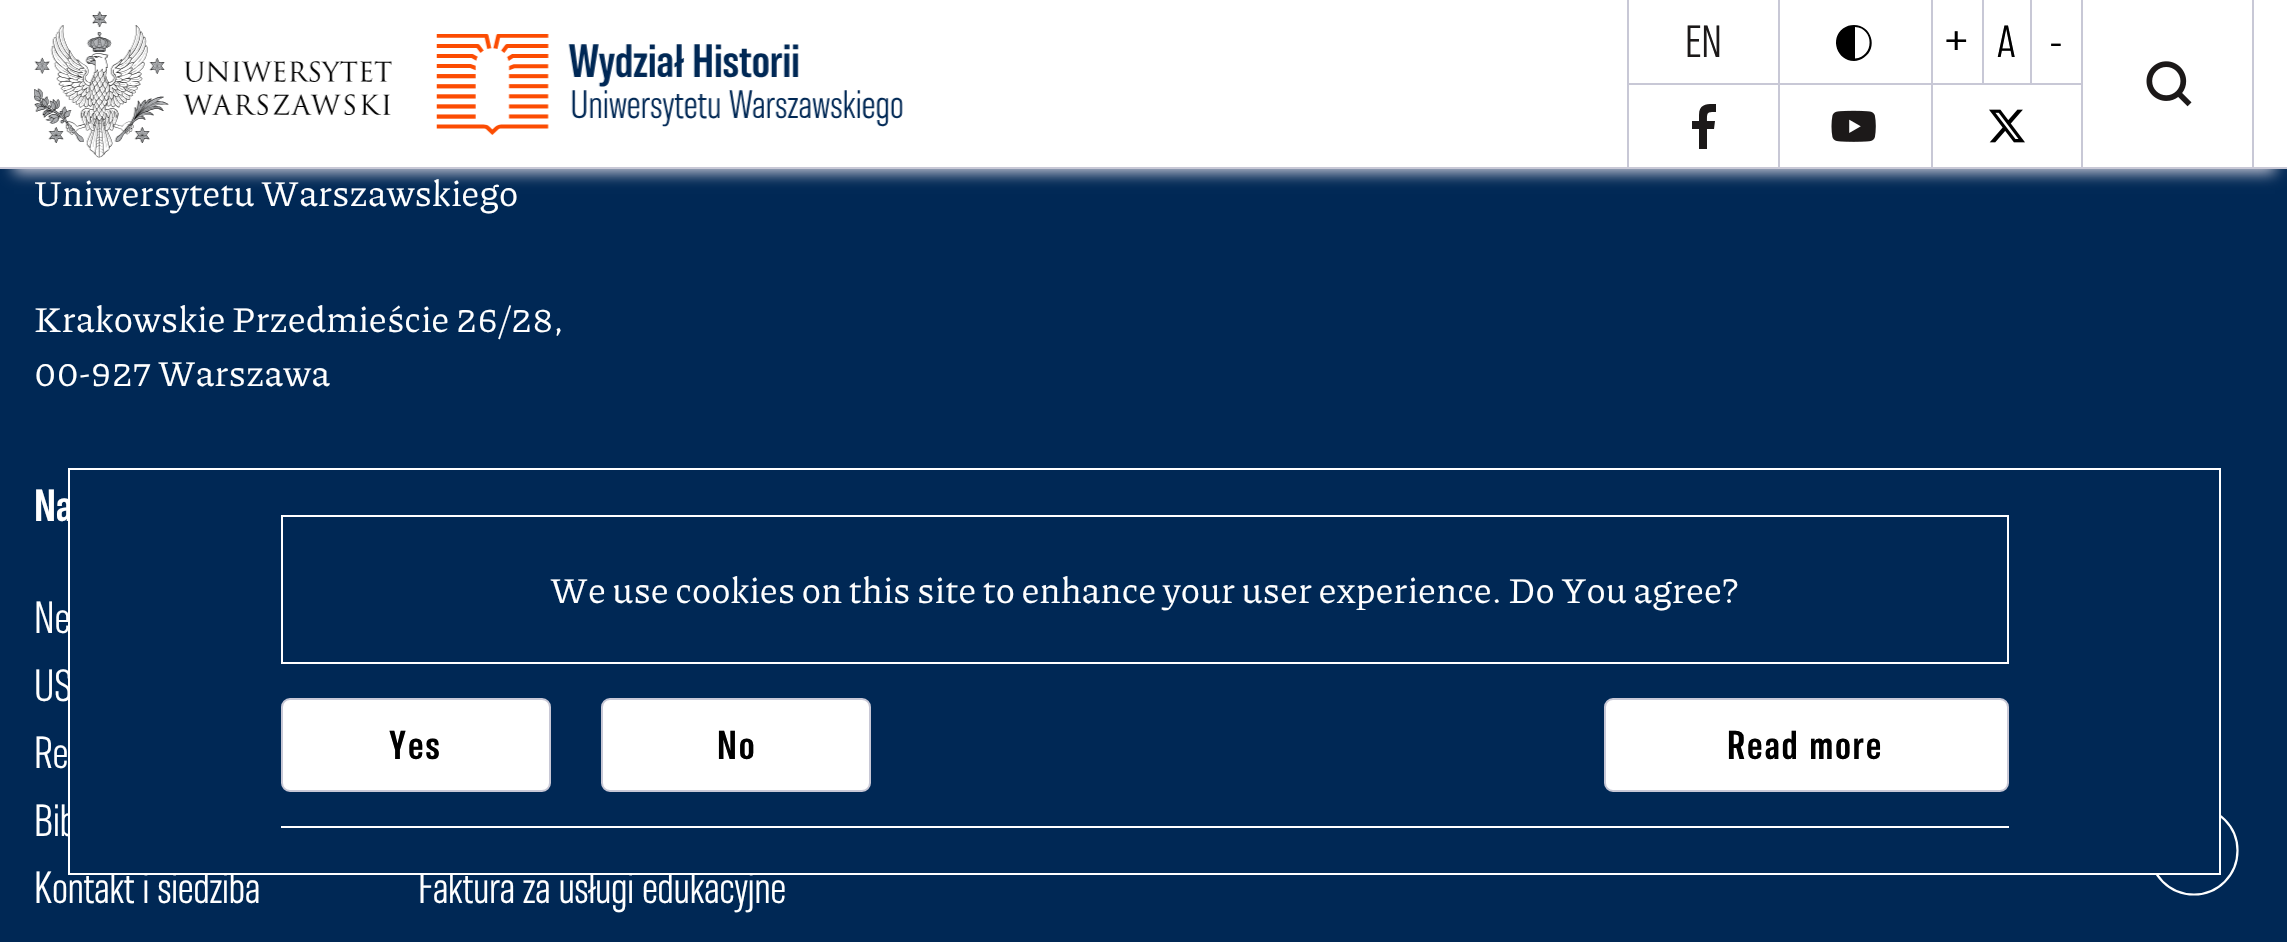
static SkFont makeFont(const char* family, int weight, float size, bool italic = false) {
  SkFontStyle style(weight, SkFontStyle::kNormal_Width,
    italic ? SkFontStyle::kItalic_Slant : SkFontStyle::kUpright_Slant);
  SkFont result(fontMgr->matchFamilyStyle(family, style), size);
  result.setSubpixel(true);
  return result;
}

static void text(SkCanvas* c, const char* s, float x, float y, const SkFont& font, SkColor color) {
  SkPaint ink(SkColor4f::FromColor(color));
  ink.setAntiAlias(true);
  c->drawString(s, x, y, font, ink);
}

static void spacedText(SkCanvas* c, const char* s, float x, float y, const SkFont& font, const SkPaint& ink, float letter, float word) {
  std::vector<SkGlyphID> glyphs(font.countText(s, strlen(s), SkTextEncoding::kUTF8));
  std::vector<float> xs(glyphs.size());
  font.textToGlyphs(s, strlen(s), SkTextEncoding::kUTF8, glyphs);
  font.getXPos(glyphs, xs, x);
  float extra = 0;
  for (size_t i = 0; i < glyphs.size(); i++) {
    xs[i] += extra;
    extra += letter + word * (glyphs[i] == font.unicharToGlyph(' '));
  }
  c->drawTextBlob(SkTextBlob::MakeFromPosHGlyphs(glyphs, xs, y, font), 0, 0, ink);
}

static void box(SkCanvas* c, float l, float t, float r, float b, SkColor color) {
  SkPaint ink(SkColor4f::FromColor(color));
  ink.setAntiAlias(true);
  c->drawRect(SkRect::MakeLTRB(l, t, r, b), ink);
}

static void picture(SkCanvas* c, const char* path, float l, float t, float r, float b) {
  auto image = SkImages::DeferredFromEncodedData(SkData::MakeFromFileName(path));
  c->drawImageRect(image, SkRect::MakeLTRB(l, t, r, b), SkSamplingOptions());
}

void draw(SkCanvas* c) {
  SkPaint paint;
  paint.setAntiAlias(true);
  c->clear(0xff002855);
  paint.setColor(0xffc8c8d6);
  paint.setMaskFilter(SkMaskFilter::MakeBlur(kNormal_SkBlurStyle, 7));
  c->drawRect(SkRect::MakeLTRB(14, 32, 2275, 173), paint);
  paint.setMaskFilter(nullptr);
  box(c, 0, 0, 2287, 167, 0xffffffff);
  box(c, 0, 167, 2287, 169, 0xffc8c8d6);
  picture(c, "img_01.png", 34, 11, 392, 158);
  picture(c, "img_02.png", 436, 34, 903, 135);
  box(c, 1627, 0, 1629, 83, 0xffc8c8d6);
  SkFont face1 = makeFont("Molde", 400, 45);
  text(c, "EN", 1685, 57, face1, 0xff1c1919);
  box(c, 1778, 0, 1780, 83, 0xffc8c8d6);
  paint.setColor(0xff000000);
  c->drawPath(SkPathBuilder().moveTo(1855, 58.5f).lineTo(1855, 27).cubicTo(1874.5f, 28, 1874.5f, 57, 1855, 58.5f).close().moveTo(1854, 25).cubicTo(1850, 25, 1846.5f, 26, 1843, 28.5f).cubicTo(1829.5f, 38.5f, 1837, 61, 1854, 61).cubicTo(1857.5f, 61, 1861, 59.5f, 1864, 57.5f).cubicTo(1878.5f, 48, 1871.5f, 25, 1854, 25).close().detach(), paint);
  box(c, 1931, 0, 1933, 83, 0xffc8c8d6);
  text(c, "+", 1945, 57, face1, 0xff000000);
  box(c, 2030, 0, 2032, 83, 0xffc8c8d6);
  box(c, 1982, 0, 1984, 83, 0xffc8c8d6);
  text(c, "A", 1997, 57, face1, 0xff000000);
  text(c, "-", 2049, 57, face1, 0xff000000);
  box(c, 2252, 0, 2254, 167, 0xffc8c8d6);
  box(c, 2081, 0, 2083, 167, 0xffc8c8d6);
  picture(c, "img_03.png", 2146, 61, 2192, 107);
  box(c, 1627, 83, 2081, 85, 0xffc8c8d6);
  box(c, 1627, 83, 1629, 167, 0xffc8c8d6);
  paint.setColor(0xff1c1919);
  c->drawPath(SkPathBuilder().moveTo(1699, 149).lineTo(1707, 149).lineTo(1707, 129).lineTo(1714, 129).lineTo(1715, 121).lineTo(1707, 121).cubicTo(1707, 112, 1707, 112, 1716, 112).lineTo(1716, 104).cubicTo(1708, 104, 1699, 103, 1699, 115).lineTo(1699, 121).lineTo(1692, 121).lineTo(1692, 129).lineTo(1699, 129).close().detach(), paint);
  box(c, 1778, 83, 1780, 167, 0xffc8c8d6);
  picture(c, "img_04.png", 1831, 110, 1876, 142);
  box(c, 1931, 83, 1933, 167, 0xffc8c8d6);
  picture(c, "img_05.png", 1989, 109, 2025, 143);
  SkFont face2 = makeFont("Molde", 700, 45);
  text(c, "Na", 34, 521, face2, 0xffffffff);
  text(c, "US", 34, 701, face1, 0xffffffff);
  text(c, "Bib", 34, 836, face1, 0xffffffff);
  text(c, "Kontakt i siedziba", 34, 903, face1, 0xffffffff);
  text(c, "Faktura za usługi edukacyjne", 418, 903, face1, 0xffffffff);
  paint.setStyle(SkPaint::kStroke_Style);
  paint.setStrokeWidth(2.2f);
  paint.setColor(0xffffffff);
  c->drawPath(SkPathBuilder().moveTo(2194, 894.5f).cubicTo(2169.5f, 894.5f, 2150, 875, 2150, 850.5f).cubicTo(2150, 826.5f, 2169.5f, 807, 2194, 807).cubicTo(2218, 807, 2237.5f, 826.5f, 2237.5f, 850.5f).cubicTo(2237.5f, 875, 2218, 894.5f, 2194, 894.5f).close().detach(), paint);
  box(c, 70, 500, 2219, 873, 0xff002855);
  paint.setStrokeWidth(2);
  c->drawRect(SkRect::MakeLTRB(69, 469, 2220, 874), paint);
  c->drawRect(SkRect::MakeLTRB(282, 516, 2008, 663), paint);
  SkFont face3 = makeFont("Piazzolla", 400, 36);
  text(c, "We use cookies on this site to enhance your user experience. Do You agree?", 550, 603, face3, 0xffffffff);
  box(c, 281, 826, 2009, 828, 0xffffffff);
  paint.setStyle(SkPaint::kFill_Style);
  c->drawRoundRect(SkRect::MakeLTRB(282, 699, 550, 791), 8, 8, paint);
  paint.setStyle(SkPaint::kStroke_Style);
  paint.setColor(0xffc8c8d6);
  c->drawRoundRect(SkRect::MakeLTRB(282, 699, 550, 791), 8, 8, paint);
  SkFont face4 = makeFont("Molde", 700, 40.5f);
  paint.setStyle(SkPaint::kFill_Style);
  paint.setColor(0xff000000);
  spacedText(c, "Yes", 389, 759, face4, paint, 2.25f, 0);
  paint.setColor(0xffffffff);
  c->drawRoundRect(SkRect::MakeLTRB(602, 699, 870, 791), 8, 8, paint);
  paint.setStyle(SkPaint::kStroke_Style);
  paint.setColor(0xffc8c8d6);
  c->drawRoundRect(SkRect::MakeLTRB(602, 699, 870, 791), 8, 8, paint);
  paint.setStyle(SkPaint::kFill_Style);
  paint.setColor(0xff000000);
  spacedText(c, "No", 717, 759, face4, paint, 2.25f, 0);
  paint.setColor(0xffffffff);
  c->drawRoundRect(SkRect::MakeLTRB(1605, 699, 2008, 791), 8, 8, paint);
  paint.setStyle(SkPaint::kStroke_Style);
  paint.setColor(0xffc8c8d6);
  c->drawRoundRect(SkRect::MakeLTRB(1605, 699, 2008, 791), 8, 8, paint);
  paint.setStyle(SkPaint::kFill_Style);
  paint.setColor(0xff000000);
  spacedText(c, "Read more", 1727, 759, face4, paint, 2.25f, 0);
  text(c, "Uniwersytetu Warszawskiego", 34, 206, face3, 0xffffffff);
  text(c, "Krakowskie Przedmieście 26/28,", 34, 332, face3, 0xffffffff);
  text(c, "00-927 Warszawa", 34, 386, face3, 0xffffffff);
  text(c, "Ne", 34, 633, face1, 0xffffffff);
  text(c, "Re", 34, 768, face1, 0xffffffff);
}
